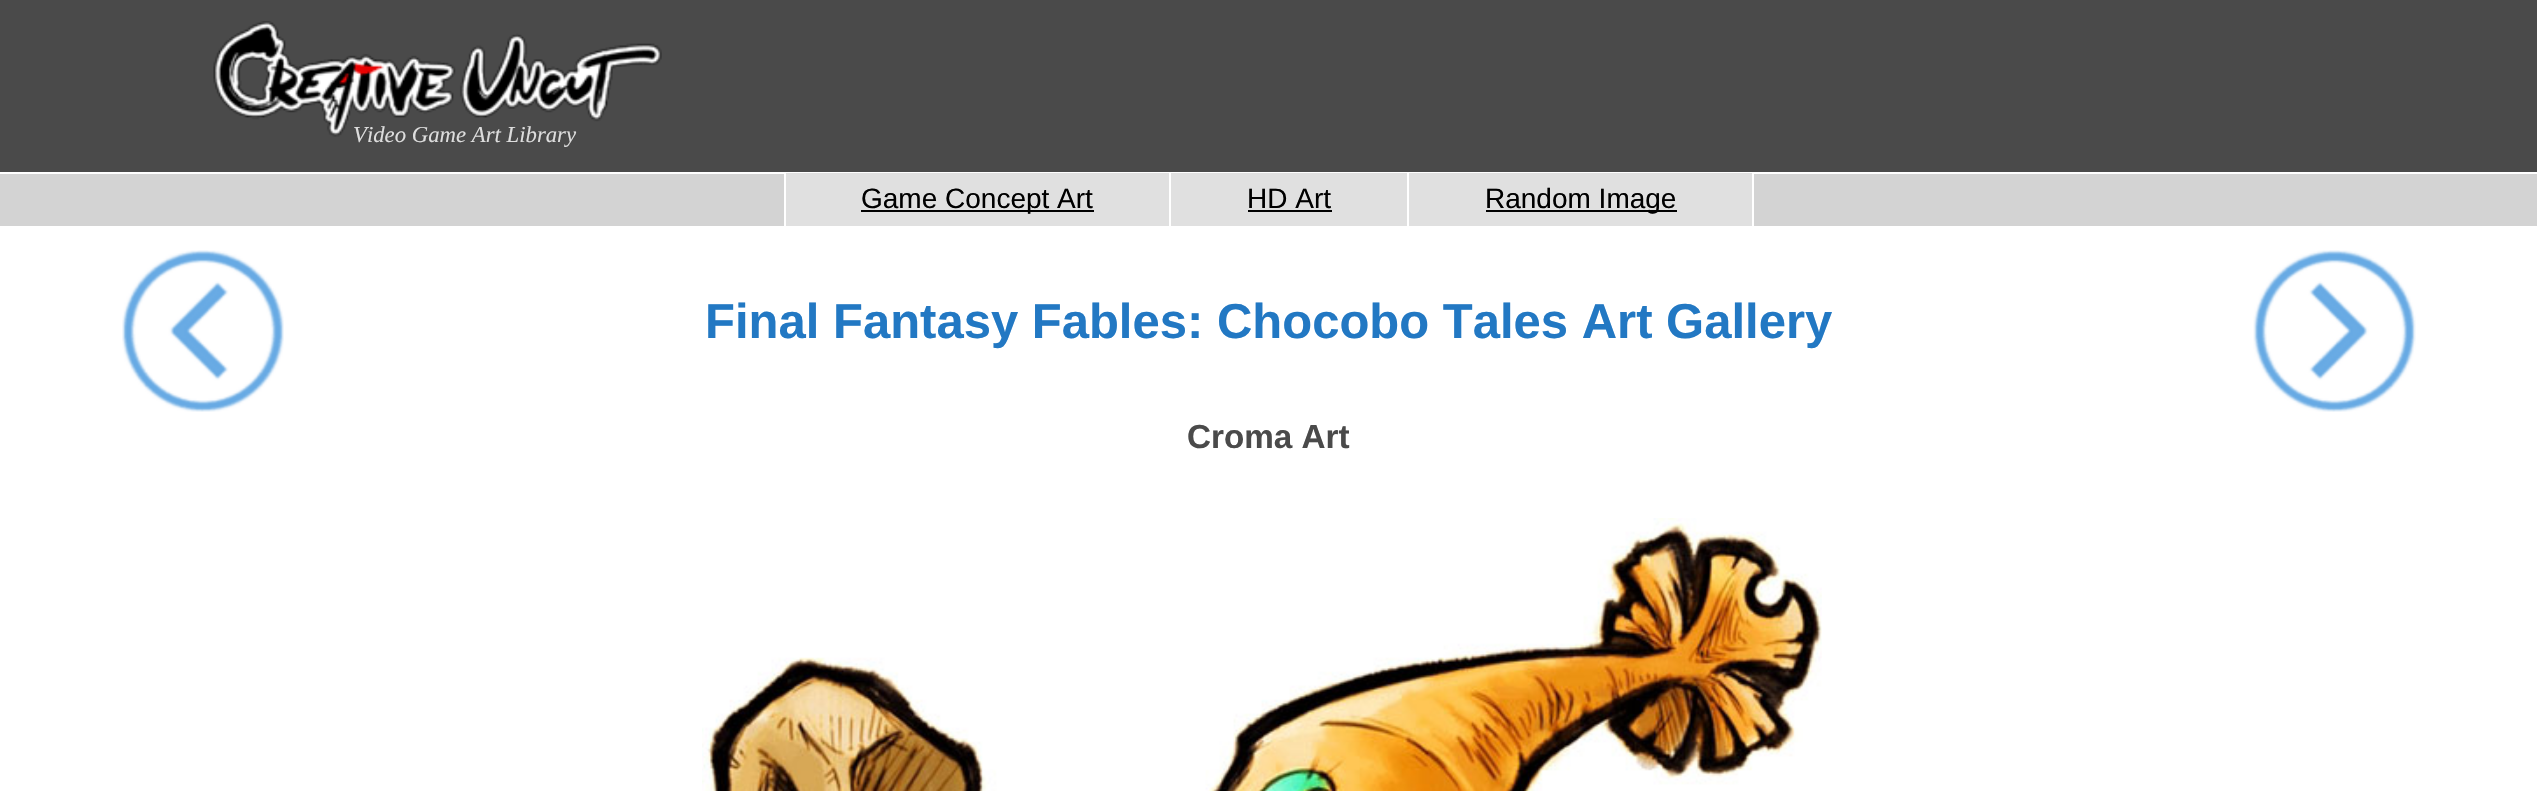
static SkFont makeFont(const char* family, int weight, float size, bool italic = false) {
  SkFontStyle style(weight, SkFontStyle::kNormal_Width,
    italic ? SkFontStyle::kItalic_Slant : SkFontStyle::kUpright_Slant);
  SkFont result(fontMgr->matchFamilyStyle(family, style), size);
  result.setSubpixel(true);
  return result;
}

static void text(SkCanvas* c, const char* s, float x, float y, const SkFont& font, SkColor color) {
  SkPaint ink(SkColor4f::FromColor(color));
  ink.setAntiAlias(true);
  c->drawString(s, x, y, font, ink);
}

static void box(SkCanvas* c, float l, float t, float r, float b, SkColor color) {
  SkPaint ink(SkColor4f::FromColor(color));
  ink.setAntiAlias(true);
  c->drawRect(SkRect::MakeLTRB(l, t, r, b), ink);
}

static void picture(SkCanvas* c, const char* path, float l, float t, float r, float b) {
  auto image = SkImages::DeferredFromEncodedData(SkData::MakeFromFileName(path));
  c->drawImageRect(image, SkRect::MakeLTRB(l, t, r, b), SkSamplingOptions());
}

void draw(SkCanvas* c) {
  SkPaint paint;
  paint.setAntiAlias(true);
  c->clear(0xffffffff);
  box(c, 0, 0, 2537, 172, 0xff4a4a4a);
  picture(c, "img_01.png", 213, 21, 662, 137);
  SkFont face1 = makeFont("Liberation Serif", 400, 22.75f, true);
  text(c, "Video Game Art Library", 353, 142, face1, 0xffdddddd);
  box(c, 0, 174, 2537, 226, 0xffd3d3d3);
  box(c, 786, 173, 1169, 226, 0xffe0e0e0);
  box(c, 784, 173, 786, 226, 0xffffffff);
  box(c, 861, 210, 1094, 212, 0xff000000);
  SkFont face2 = makeFont("Liberation Sans", 400, 28);
  text(c, "Game Concept Art", 861, 208, face2, 0xff000000);
  box(c, 1171, 173, 1407, 226, 0xffe0e0e0);
  box(c, 1169, 173, 1171, 226, 0xffffffff);
  text(c, "HD Art", 1247, 208, face2, 0xff000000);
  box(c, 1248, 210, 1332, 212, 0xff000000);
  box(c, 1409, 173, 1752, 226, 0xffe0e0e0);
  box(c, 1752, 173, 1754, 226, 0xffffffff);
  box(c, 1407, 173, 1409, 226, 0xffffffff);
  box(c, 1486, 210, 1677, 212, 0xff000000);
  text(c, "Random Image", 1485, 208, face2, 0xff000000);
  picture(c, "img_02.png", 122, 250, 284, 412);
  SkFont face3 = makeFont("Liberation Sans", 700, 49);
  text(c, "Final Fantasy Fables: Chocobo Tales Art Gallery", 705, 338, face3, 0xff2278c3);
  picture(c, "img_03.png", 2253, 250, 2416, 412);
  SkFont face4 = makeFont("Liberation Sans", 700, 33.25f);
  text(c, "Croma Art", 1187, 448, face4, 0xff4a4a4a);
  picture(c, "img_04.png", 702, 518, 1822, 791);
}
